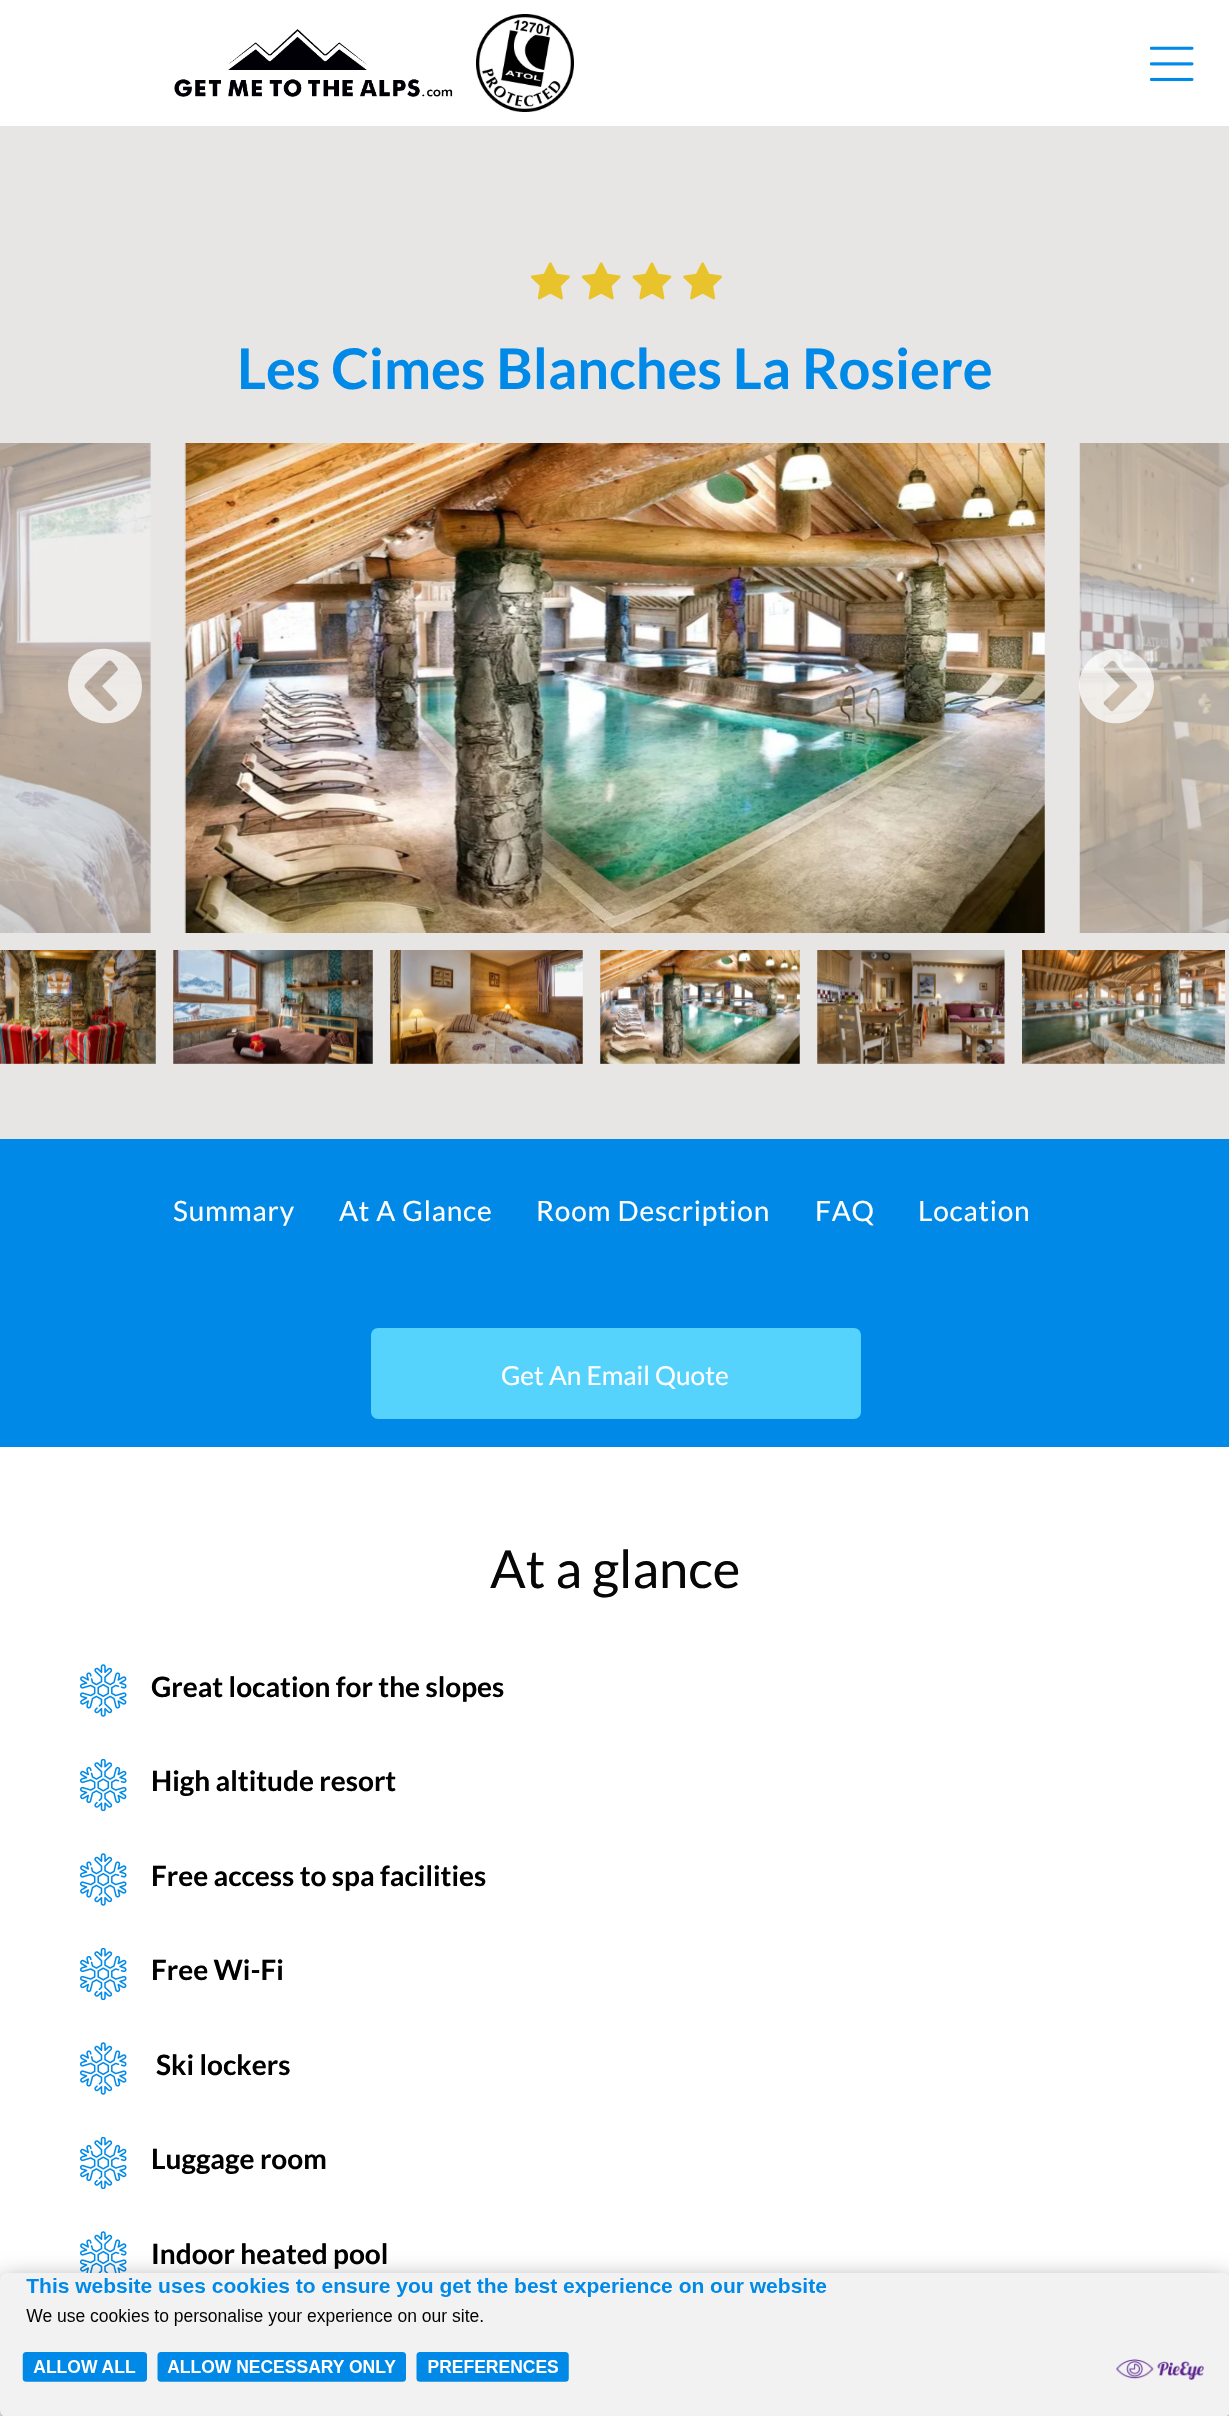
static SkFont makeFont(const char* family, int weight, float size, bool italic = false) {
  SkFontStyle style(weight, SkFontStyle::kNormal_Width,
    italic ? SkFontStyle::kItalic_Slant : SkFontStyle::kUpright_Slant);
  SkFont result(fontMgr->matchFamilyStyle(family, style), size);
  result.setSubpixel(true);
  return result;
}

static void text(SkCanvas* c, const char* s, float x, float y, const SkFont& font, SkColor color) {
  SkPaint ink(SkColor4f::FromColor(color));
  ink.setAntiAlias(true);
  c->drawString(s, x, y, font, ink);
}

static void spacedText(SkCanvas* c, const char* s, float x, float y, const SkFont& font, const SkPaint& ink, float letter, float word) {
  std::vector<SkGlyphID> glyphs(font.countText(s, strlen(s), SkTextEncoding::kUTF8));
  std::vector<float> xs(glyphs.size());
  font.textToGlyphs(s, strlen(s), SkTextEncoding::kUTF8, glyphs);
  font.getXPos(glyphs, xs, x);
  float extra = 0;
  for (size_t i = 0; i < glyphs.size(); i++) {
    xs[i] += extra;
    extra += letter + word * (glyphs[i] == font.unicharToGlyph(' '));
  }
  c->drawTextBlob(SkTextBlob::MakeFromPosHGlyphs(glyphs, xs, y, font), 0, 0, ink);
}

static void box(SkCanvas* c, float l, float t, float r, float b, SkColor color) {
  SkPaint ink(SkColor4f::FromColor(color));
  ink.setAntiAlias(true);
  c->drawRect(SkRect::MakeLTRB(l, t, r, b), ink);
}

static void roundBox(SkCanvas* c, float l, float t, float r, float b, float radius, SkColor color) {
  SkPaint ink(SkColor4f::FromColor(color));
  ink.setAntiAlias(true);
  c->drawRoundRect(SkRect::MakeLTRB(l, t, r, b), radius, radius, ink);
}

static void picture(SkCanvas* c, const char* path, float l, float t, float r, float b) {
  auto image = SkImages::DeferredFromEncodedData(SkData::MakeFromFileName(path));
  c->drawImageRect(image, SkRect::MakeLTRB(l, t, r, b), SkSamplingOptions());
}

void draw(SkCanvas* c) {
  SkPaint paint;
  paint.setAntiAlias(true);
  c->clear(0xffffffff);
  picture(c, "img_01.png", 174, 29, 453, 97);
  picture(c, "img_02.png", 476, 14, 574, 112);
  picture(c, "img_03.png", 1150, 46, 1194, 82);
  box(c, 0, 126, 1229, 1139, 0xffe7e6e5);
  picture(c, "img_04.png", 531, 262, 570, 300);
  picture(c, "img_05.png", 581, 262, 621, 300);
  picture(c, "img_06.png", 632, 262, 672, 300);
  picture(c, "img_07.png", 683, 262, 722, 300);
  SkFont face1 = makeFont("Lato", 700, 56);
  text(c, "Les Cimes Blanches La Rosiere", 237, 389, face1, 0xff0189e7);
  picture(c, "img_08.png", 0, 443, 151, 933);
  picture(c, "img_09.png", 184, 443, 1045, 933);
  picture(c, "img_10.png", 1079, 443, 1229, 933);
  paint.setColor(0xbfffffff);
  c->drawPath(SkPathBuilder().moveTo(112, 710).cubicTo(109, 713, 105, 708, 104, 707).lineTo(89, 692).cubicTo(83, 686, 83, 686, 89, 680).lineTo(104, 665).cubicTo(110, 659, 110, 659, 116, 666).cubicTo(117, 667, 119, 669, 117, 671).lineTo(102, 686).lineTo(114, 699).cubicTo(120, 705, 117, 705, 112, 710).close().moveTo(142, 686).cubicTo(142, 651, 97, 635, 75, 663).cubicTo(70, 670, 68, 678, 68, 686).cubicTo(68, 721, 113, 737, 135, 709).cubicTo(140, 702, 142, 694, 142, 686).close().detach(), paint);
  c->drawPath(SkPathBuilder().moveTo(1114, 710).cubicTo(1112, 713, 1109, 710, 1108, 708).cubicTo(1103, 703, 1102, 704, 1107, 699).lineTo(1120, 686).lineTo(1107, 673).cubicTo(1102, 668, 1103, 669, 1108, 664).cubicTo(1114, 657, 1115, 663, 1121, 669).lineTo(1132, 680).cubicTo(1139, 686, 1139, 686, 1132, 692).close().moveTo(1154, 686).cubicTo(1154, 678, 1151, 670, 1146, 663).cubicTo(1125, 635, 1079, 651, 1079, 686).cubicTo(1079, 694, 1082, 702, 1087, 709).cubicTo(1108, 737, 1154, 721, 1154, 686).close().detach(), paint);
  picture(c, "img_11.png", 0, 950, 156, 1064);
  picture(c, "img_12.png", 173, 950, 373, 1064);
  picture(c, "img_13.png", 390, 950, 583, 1064);
  picture(c, "img_14.png", 600, 950, 800, 1064);
  picture(c, "img_15.png", 817, 950, 1005, 1064);
  picture(c, "img_16.png", 1022, 950, 1225, 1064);
  box(c, 0, 1139, 1229, 1447, 0xff0189e7);
  SkFont face2 = makeFont("Lato", 400, 28);
  paint.setColor(0xffffffff);
  spacedText(c, "Summary", 173, 1221, face2, paint, 0.8f, 0);
  spacedText(c, "At A Glance", 339, 1221, face2, paint, 0.8f, 0);
  spacedText(c, "Room Description", 536, 1221, face2, paint, 0.8f, 0);
  spacedText(c, "FAQ", 815, 1221, face2, paint, 0.8f, 0);
  spacedText(c, "Location", 918, 1221, face2, paint, 0.8f, 0);
  roundBox(c, 371, 1328, 861, 1419, 7, 0xff55d3fd);
  SkFont face3 = makeFont("Lato", 400, 26.25f);
  text(c, "Get An Email Quote", 501, 1385, face3, 0xffffffff);
  SkFont face4 = makeFont("Lato", 400, 52.5f);
  text(c, "At a glance", 490, 1588, face4, 0xff080708);
  picture(c, "img_17.png", 80, 1664, 127, 1717);
  SkFont face5 = makeFont("Lato", 700, 28);
  text(c, "Great location for the slopes", 151, 1697, face5, 0xff000000);
  picture(c, "img_18.png", 80, 1759, 127, 1811);
  text(c, "High altitude resort", 151, 1791, face5, 0xff000000);
  picture(c, "img_17.png", 80, 1853, 127, 1906);
  text(c, "Free access to spa facilities", 151, 1886, face5, 0xff000000);
  picture(c, "img_18.png", 80, 1948, 127, 2000);
  text(c, "Free Wi-Fi", 151, 1980, face5, 0xff000000);
  picture(c, "img_17.png", 80, 2042, 127, 2095);
  text(c, "Ski lockers", 156, 2075, face5, 0xff000000);
  picture(c, "img_18.png", 80, 2137, 127, 2189);
  text(c, "Luggage room", 151, 2169, face5, 0xff000000);
  picture(c, "img_19.png", 80, 2231, 127, 2273);
  text(c, "Indoor heated pool", 151, 2264, face5, 0xff000000);
  paint.setColor(0x80000000);
  paint.setMaskFilter(SkMaskFilter::MakeBlur(kNormal_SkBlurStyle, 13));
  c->drawRoundRect(SkRect::MakeLTRB(0, 2282, 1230, 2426), 7, 7, paint);
  paint.setMaskFilter(nullptr);
  roundBox(c, 0, 2273, 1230, 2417, 7, 0xfff2f2f2);
  picture(c, "img_20.png", 22, 2278, 1204, 2382);
}
